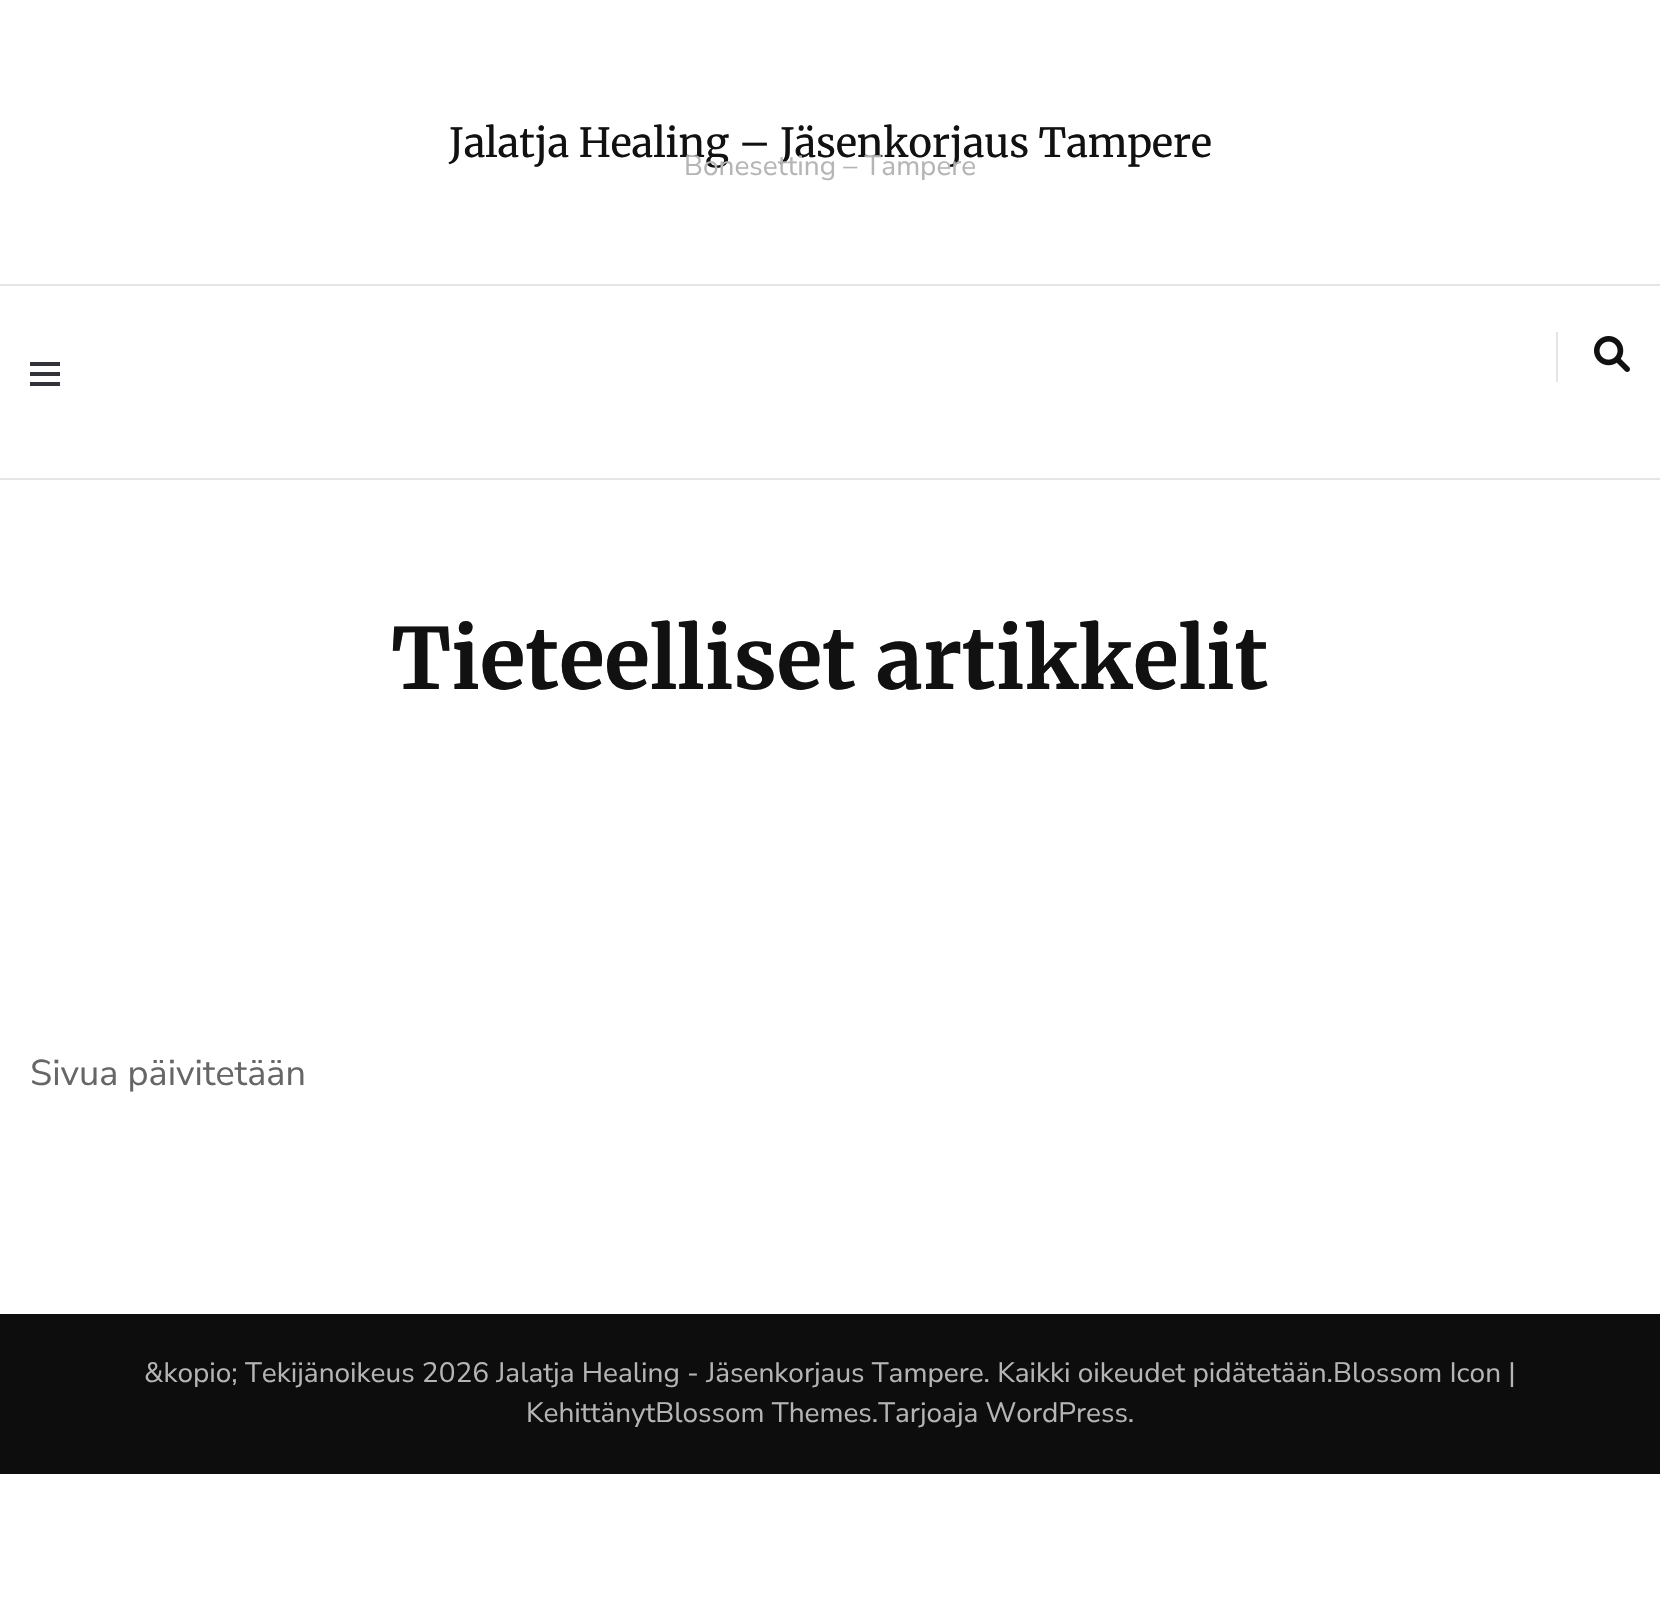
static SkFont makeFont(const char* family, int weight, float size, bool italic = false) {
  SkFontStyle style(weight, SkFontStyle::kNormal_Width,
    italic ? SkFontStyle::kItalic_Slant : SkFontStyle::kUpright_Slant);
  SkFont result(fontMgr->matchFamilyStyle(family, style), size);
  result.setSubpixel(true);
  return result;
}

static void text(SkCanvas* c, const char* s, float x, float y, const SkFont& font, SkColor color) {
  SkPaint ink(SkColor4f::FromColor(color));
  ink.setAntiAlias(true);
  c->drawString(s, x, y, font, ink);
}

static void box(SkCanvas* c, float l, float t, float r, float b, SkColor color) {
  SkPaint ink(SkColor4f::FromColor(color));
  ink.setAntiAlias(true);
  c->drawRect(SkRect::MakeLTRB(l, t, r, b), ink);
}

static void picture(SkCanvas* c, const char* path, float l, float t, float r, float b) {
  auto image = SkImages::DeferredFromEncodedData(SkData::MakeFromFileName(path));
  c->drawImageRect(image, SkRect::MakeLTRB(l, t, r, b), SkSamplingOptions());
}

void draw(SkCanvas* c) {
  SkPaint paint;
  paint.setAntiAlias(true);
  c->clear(0xffffffff);
  SkFont face1 = makeFont("Merriweather", 400, 40);
  text(c, "Jalatja Healing – Jäsenkorjaus Tampere", 449, 157, face1, 0xff111111);
  SkFont face2 = makeFont("Nunito Sans", 400, 28);
  text(c, "Bonesetting – Tampere", 684, 175, face2, 0xffb5b5b5);
  box(c, 0, 284, 1660, 286, 0xffe5e5e5);
  box(c, 0, 478, 1660, 480, 0xffe5e5e5);
  box(c, 30, 372, 60, 376, 0xff323338);
  box(c, 30, 362, 60, 366, 0xff323338);
  box(c, 30, 382, 60, 386, 0xff323338);
  box(c, 1556, 332, 1558, 382, 0xffe5e5e5);
  picture(c, "img_01.png", 1594, 336, 1630, 372);
  SkFont face3 = makeFont("Merriweather", 700, 84);
  text(c, "Tieteelliset artikkelit", 391, 689, face3, 0xff111111);
  SkFont face4 = makeFont("Nunito Sans", 400, 36);
  text(c, "Sivua päivitetään", 30, 1085, face4, 0xff666666);
  box(c, 0, 1314, 1660, 1474, 0xff0d0d0d);
  text(c, "&kopio; Tekijänoikeus 2026 Jalatja Healing - Jäsenkorjaus Tampere. Kaikki oikeudet pidätetään.Blossom Icon |", 144, 1382, face2, 0xffb5b5b5);
  text(c, "KehittänytBlossom Themes.Tarjoaja WordPress.", 526, 1422, face2, 0xffb5b5b5);
}
